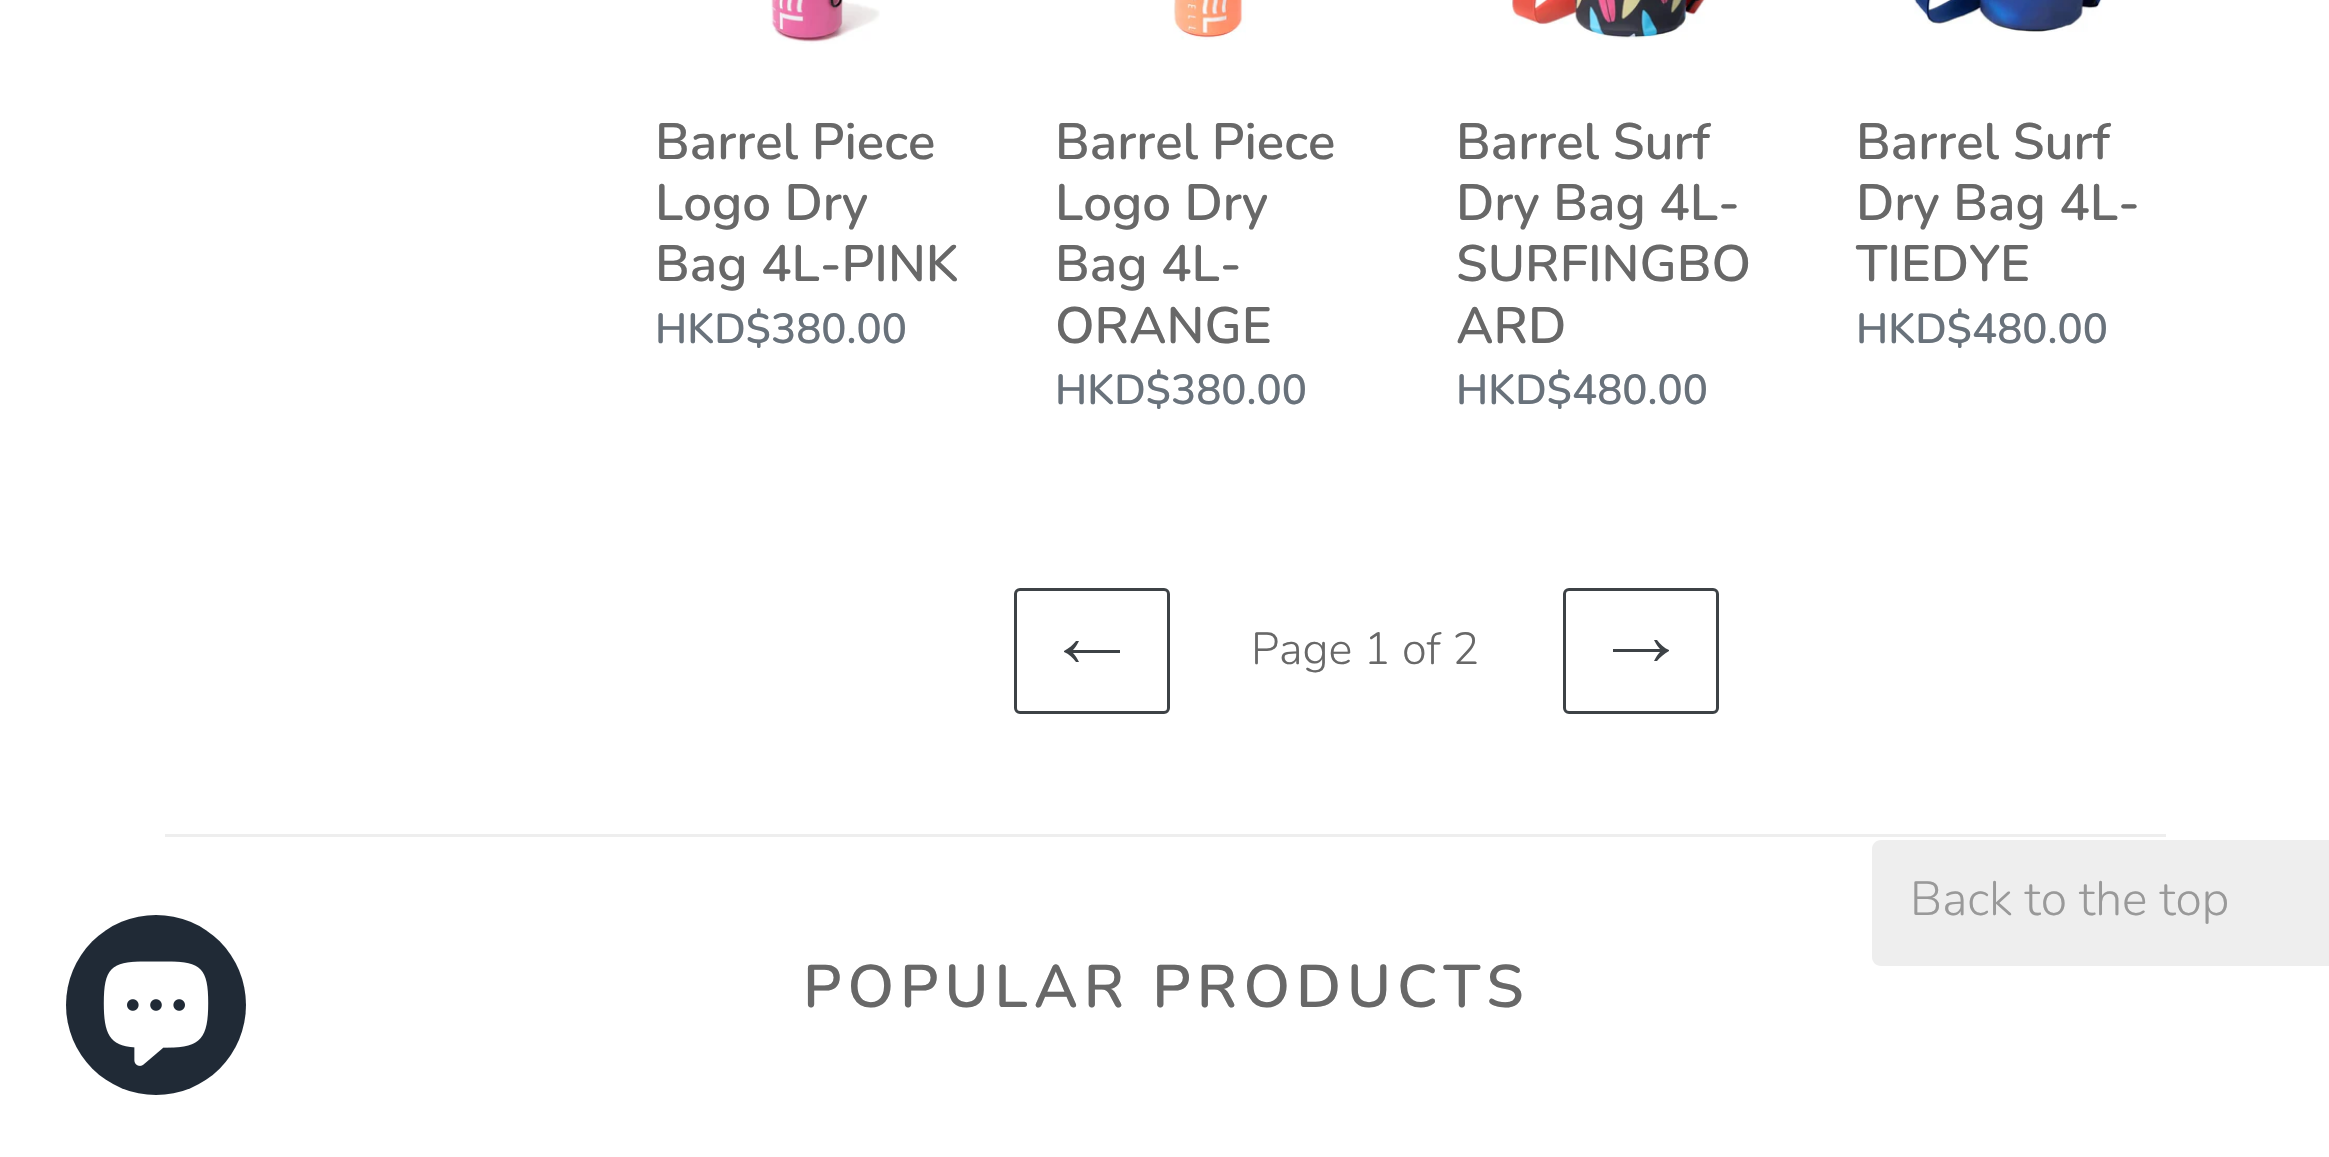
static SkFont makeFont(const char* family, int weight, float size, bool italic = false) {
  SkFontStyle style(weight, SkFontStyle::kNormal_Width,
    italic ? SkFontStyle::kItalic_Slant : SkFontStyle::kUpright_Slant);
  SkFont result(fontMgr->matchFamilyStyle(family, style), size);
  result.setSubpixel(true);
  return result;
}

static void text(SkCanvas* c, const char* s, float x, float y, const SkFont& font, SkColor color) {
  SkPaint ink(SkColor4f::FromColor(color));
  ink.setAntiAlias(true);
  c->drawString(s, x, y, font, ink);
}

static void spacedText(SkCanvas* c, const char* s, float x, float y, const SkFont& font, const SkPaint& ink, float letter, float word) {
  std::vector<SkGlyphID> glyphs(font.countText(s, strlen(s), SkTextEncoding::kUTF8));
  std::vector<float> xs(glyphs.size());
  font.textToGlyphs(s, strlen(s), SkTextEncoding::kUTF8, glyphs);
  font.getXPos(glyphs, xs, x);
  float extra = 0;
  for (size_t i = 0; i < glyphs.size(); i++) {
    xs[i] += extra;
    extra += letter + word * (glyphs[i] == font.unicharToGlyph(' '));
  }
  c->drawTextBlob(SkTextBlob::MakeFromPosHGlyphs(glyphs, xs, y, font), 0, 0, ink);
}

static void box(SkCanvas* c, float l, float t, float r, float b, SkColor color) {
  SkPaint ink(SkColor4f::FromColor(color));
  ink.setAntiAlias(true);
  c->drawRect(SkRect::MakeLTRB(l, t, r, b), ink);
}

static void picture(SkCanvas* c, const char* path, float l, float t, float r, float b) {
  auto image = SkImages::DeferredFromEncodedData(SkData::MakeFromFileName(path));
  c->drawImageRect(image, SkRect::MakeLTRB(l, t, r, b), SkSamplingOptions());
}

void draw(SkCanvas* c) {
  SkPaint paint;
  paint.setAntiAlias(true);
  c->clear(0xffffffff);
  picture(c, "img_01.png", 770, 0, 880, 44);
  SkFont face1 = makeFont("Nunito", 600, 51);
  text(c, "Barrel Piece", 655, 159, face1, 0xff686868);
  text(c, "Logo Dry", 655, 220, face1, 0xff686868);
  text(c, "Bag 4L-PINK", 655, 281, face1, 0xff686868);
  SkFont face2 = makeFont("Nunito", 600, 42);
  text(c, "HKD$380.00", 655, 343, face2, 0xff69727b);
  picture(c, "img_02.png", 1173, 0, 1246, 40);
  text(c, "Barrel Piece", 1055, 159, face1, 0xff686868);
  text(c, "Logo Dry", 1055, 220, face1, 0xff686868);
  text(c, "Bag 4L-", 1055, 281, face1, 0xff686868);
  text(c, "ORANGE", 1055, 343, face1, 0xff686868);
  text(c, "HKD$380.00", 1055, 404, face2, 0xff69727b);
  picture(c, "img_03.png", 1510, 0, 1706, 40);
  text(c, "Barrel Surf", 1456, 159, face1, 0xff686868);
  text(c, "Dry Bag 4L-", 1456, 220, face1, 0xff686868);
  text(c, "SURFINGBO", 1456, 281, face1, 0xff686868);
  text(c, "ARD", 1456, 343, face1, 0xff686868);
  text(c, "HKD$480.00", 1456, 404, face2, 0xff69727b);
  picture(c, "img_04.png", 1914, 0, 2102, 32);
  text(c, "Barrel Surf", 1856, 159, face1, 0xff686868);
  text(c, "Dry Bag 4L-", 1856, 220, face1, 0xff686868);
  text(c, "TIEDYE", 1856, 281, face1, 0xff686868);
  text(c, "HKD$480.00", 1856, 343, face2, 0xff69727b);
  paint.setStyle(SkPaint::kStroke_Style);
  paint.setStrokeWidth(3);
  paint.setColor(0xff3d4246);
  c->drawRoundRect(SkRect::MakeLTRB(1015.5f, 589.5f, 1168.5f, 712.5f), 4.5f, 4.5f, paint);
  paint.setStyle(SkPaint::kFill_Style);
  c->drawPath(SkPathBuilder(SkPathFillType::kEvenOdd).moveTo(1076, 662).cubicTo(1073, 658, 1069, 654, 1064, 652).lineTo(1064, 651).cubicTo(1069, 648, 1073, 645, 1076, 641).lineTo(1079, 641).cubicTo(1077, 645, 1075, 648, 1073, 650).lineTo(1120, 650).lineTo(1120, 653).lineTo(1073, 653).cubicTo(1075, 655, 1077, 658, 1079, 662).close().detach(), paint);
  SkFont face3 = makeFont("Nunito", 300, 45);
  text(c, "Page 1 of 2", 1251, 664, face3, 0xff686868);
  paint.setStyle(SkPaint::kStroke_Style);
  c->drawRoundRect(SkRect::MakeLTRB(1564.5f, 589.5f, 1717.5f, 712.5f), 4.5f, 4.5f, paint);
  paint.setStyle(SkPaint::kFill_Style);
  c->drawPath(SkPathBuilder(SkPathFillType::kEvenOdd).moveTo(1657, 640).cubicTo(1660, 644, 1664, 648, 1669, 650).lineTo(1669, 651).cubicTo(1664, 654, 1660, 657, 1657, 661).lineTo(1654, 661).cubicTo(1656, 657, 1658, 654, 1660, 652).lineTo(1613, 652).lineTo(1613, 649).lineTo(1660, 649).cubicTo(1658, 647, 1656, 644, 1654, 640).close().detach(), paint);
  box(c, 165, 834, 2166, 837, 0xffeeeeee);
  SkFont face4 = makeFont("Nunito", 600, 60);
  paint.setColor(0xff686868);
  spacedText(c, "POPULAR PRODUCTS", 803, 1007, face4, paint, 6, 0);
  paint.setColor(0xffeeeeee);
  c->drawPath(SkPathBuilder().moveTo(1881, 840).lineTo(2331, 840).lineTo(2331, 966).lineTo(1881, 966).cubicTo(1876, 966, 1872, 962, 1872, 957).lineTo(1872, 849).cubicTo(1872, 844, 1876, 840, 1881, 840).close().detach(), paint);
  SkFont face5 = makeFont("Nunito", 300, 48);
  text(c, "Back to the top", 1910, 915, face5, 0xff999999);
  paint.setColor(0xff202a36);
  c->drawCircle(156, 1005, 90, paint);
  picture(c, "img_05.png", 103, 961, 209, 1066);
}
